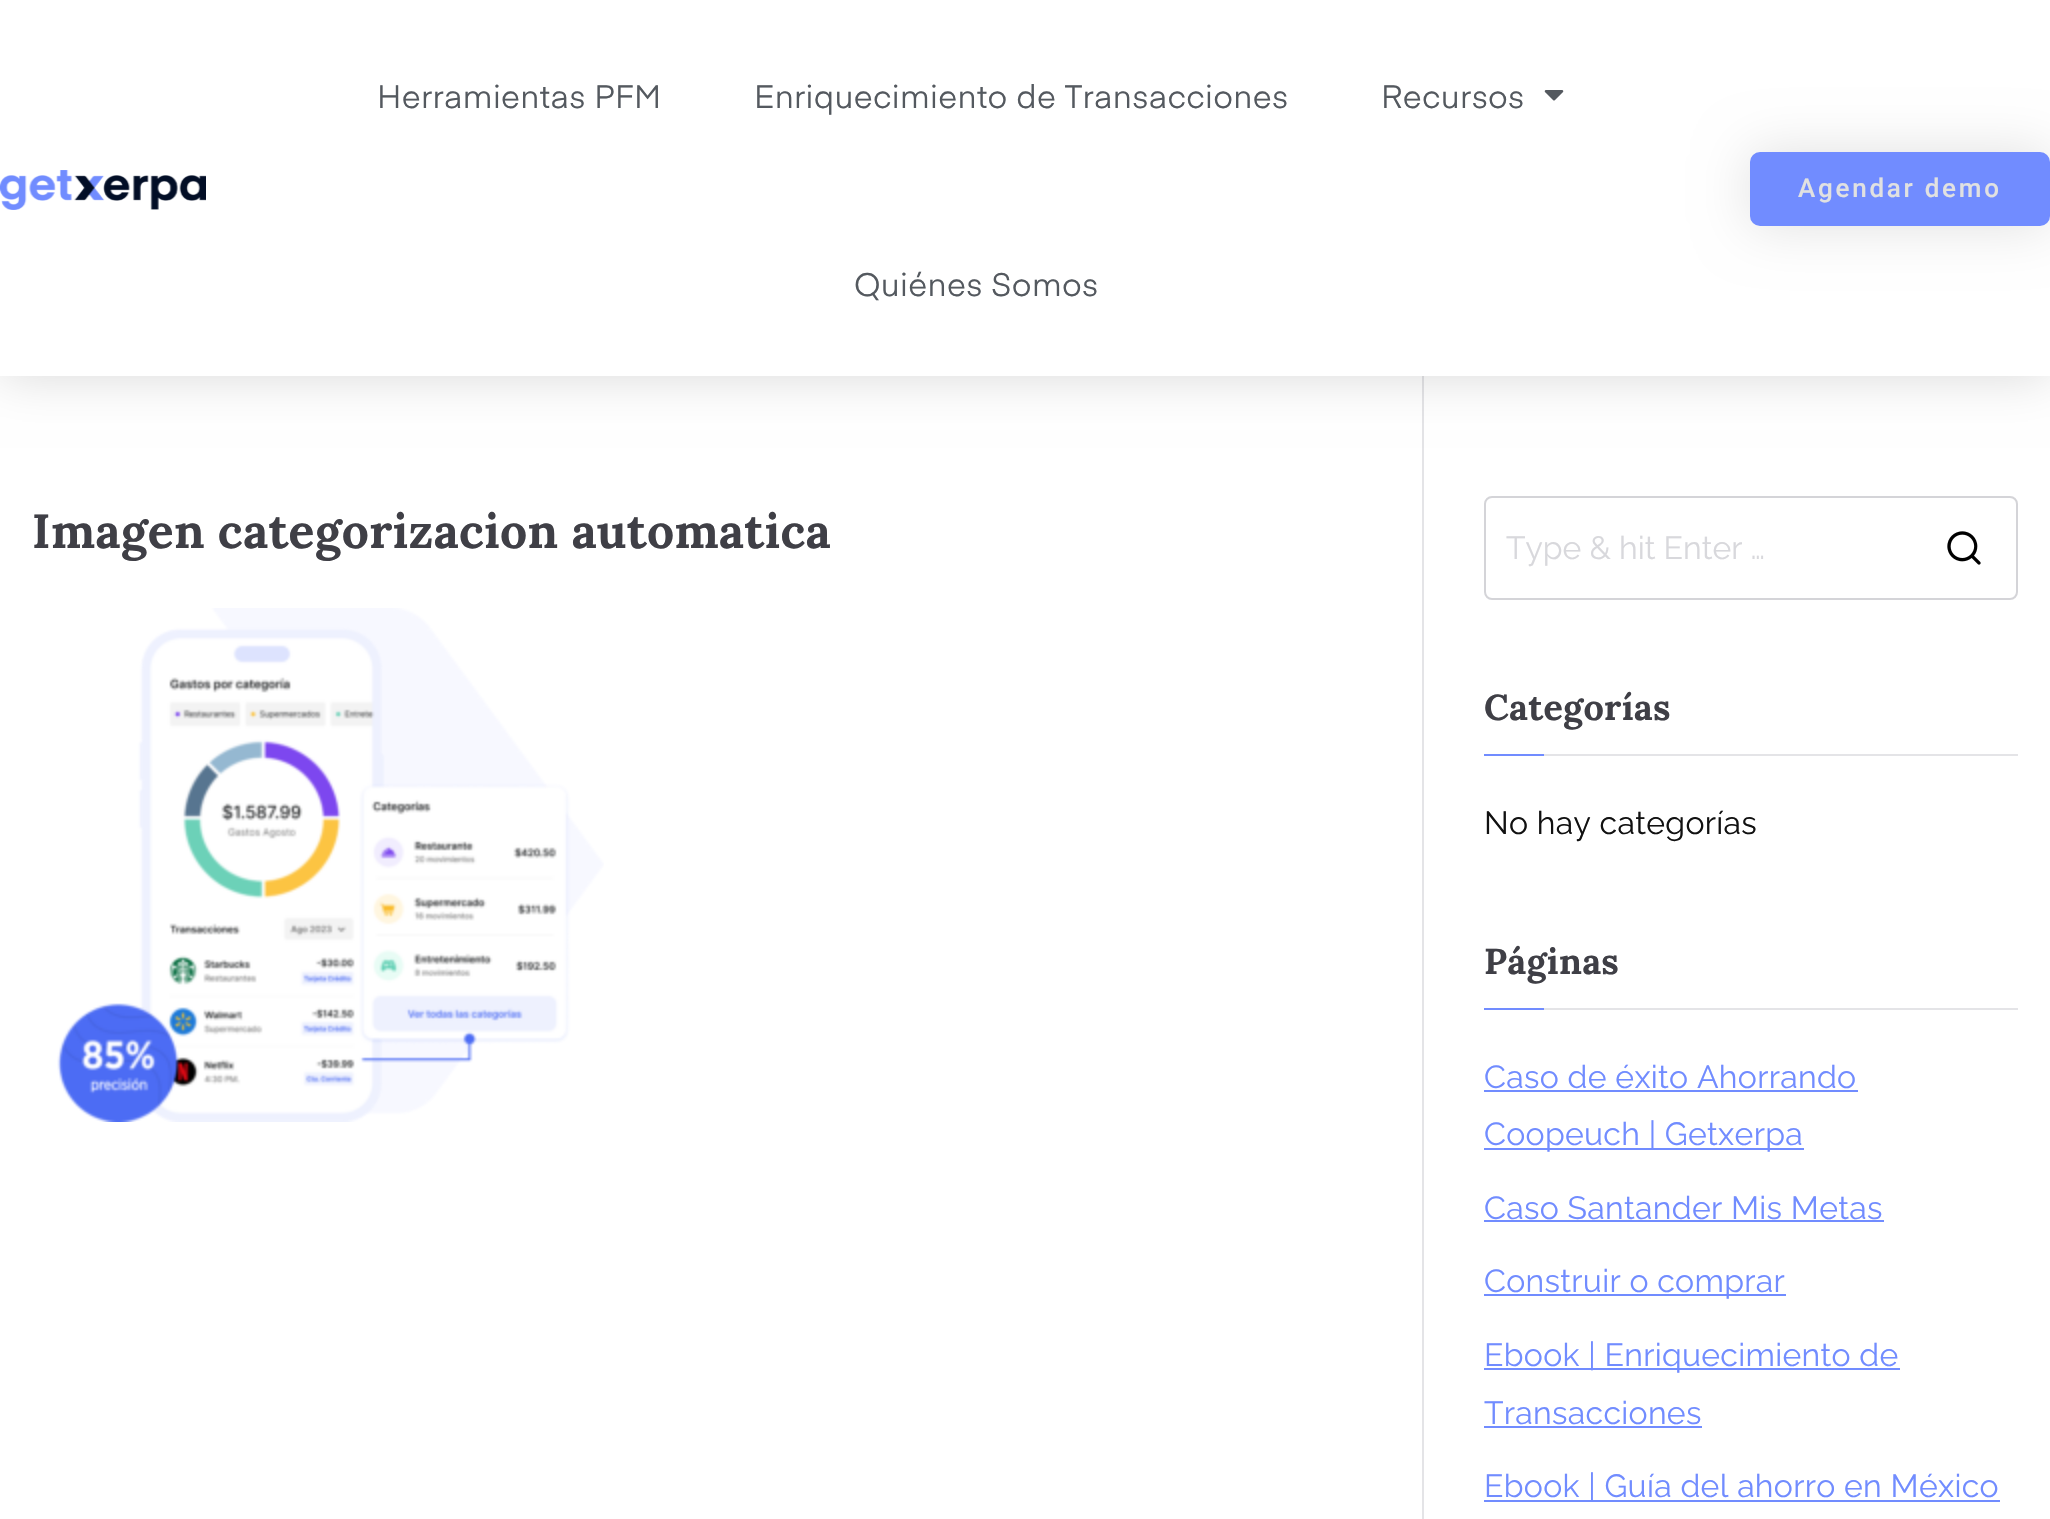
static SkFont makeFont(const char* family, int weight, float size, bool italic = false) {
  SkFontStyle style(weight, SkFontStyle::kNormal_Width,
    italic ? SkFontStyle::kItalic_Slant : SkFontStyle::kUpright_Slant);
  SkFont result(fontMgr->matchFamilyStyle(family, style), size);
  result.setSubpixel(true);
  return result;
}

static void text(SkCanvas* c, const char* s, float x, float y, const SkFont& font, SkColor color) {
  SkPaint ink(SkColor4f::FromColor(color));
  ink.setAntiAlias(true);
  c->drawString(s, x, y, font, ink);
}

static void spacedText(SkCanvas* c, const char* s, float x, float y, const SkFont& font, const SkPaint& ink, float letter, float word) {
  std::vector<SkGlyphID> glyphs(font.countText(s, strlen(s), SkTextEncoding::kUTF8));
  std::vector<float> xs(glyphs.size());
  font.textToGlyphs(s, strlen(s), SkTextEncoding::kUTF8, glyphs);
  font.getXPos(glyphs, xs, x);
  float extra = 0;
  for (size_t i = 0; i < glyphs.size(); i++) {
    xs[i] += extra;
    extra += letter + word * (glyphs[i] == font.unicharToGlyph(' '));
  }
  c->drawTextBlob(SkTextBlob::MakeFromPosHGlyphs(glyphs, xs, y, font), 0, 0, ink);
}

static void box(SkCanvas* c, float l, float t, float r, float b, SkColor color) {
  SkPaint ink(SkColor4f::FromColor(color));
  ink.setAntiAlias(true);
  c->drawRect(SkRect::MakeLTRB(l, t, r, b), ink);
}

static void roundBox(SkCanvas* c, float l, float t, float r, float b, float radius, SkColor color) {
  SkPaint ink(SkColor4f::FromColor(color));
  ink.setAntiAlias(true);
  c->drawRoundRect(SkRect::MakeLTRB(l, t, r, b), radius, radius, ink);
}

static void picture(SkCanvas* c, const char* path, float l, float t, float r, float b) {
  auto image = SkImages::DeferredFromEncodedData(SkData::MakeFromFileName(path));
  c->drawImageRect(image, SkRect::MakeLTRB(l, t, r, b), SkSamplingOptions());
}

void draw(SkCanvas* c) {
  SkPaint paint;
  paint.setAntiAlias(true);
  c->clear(0xffffffff);
  box(c, 1422, 376, 1424, 1519, 0xffe4e4e7);
  paint.setColor(0x26000000);
  paint.setMaskFilter(SkMaskFilter::MakeBlur(kNormal_SkBlurStyle, 24));
  c->drawRect(SkRect::MakeLTRB(0, 0, 2050, 376), paint);
  paint.setMaskFilter(nullptr);
  box(c, 0, 0, 2050, 376, 0xffffffff);
  picture(c, "img_01.png", 0, 170, 206, 210);
  SkFont face1 = makeFont("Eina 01", 400, 32);
  paint.setColor(0xff54595f);
  spacedText(c, "Herramientas PFM", 377, 108, face1, paint, 0.3f, 0);
  spacedText(c, "Enriquecimiento de Transacciones", 754, 108, face1, paint, 0.3f, 0);
  spacedText(c, "Recursos", 1381, 108, face1, paint, 0.3f, 0);
  picture(c, "img_02.png", 1544, 90, 1564, 101);
  spacedText(c, "Quiénes Somos", 854, 296, face1, paint, 0.3f, 0);
  paint.setColor(0x1f000000);
  paint.setMaskFilter(SkMaskFilter::MakeBlur(kNormal_SkBlurStyle, 27));
  c->drawRoundRect(SkRect::MakeLTRB(1750, 152, 2050, 226), 10, 10, paint);
  paint.setMaskFilter(nullptr);
  roundBox(c, 1750, 152, 2050, 226, 10, 0xff718cff);
  SkFont face2 = makeFont("Roboto", 500, 26);
  paint.setColor(0xffe1e1e1);
  spacedText(c, "Agendar demo", 1798, 197, face2, paint, 2.75f, 0);
  SkFont face3 = makeFont("Lora", 700, 48);
  paint.setColor(0xff3f3f46);
  spacedText(c, "Imagen categorizacion automatica", 32, 548, face3, paint, 0.3f, 0);
  picture(c, "img_03.png", 57, 608, 604, 1122);
  paint.setStyle(SkPaint::kStroke_Style);
  paint.setStrokeWidth(2);
  paint.setColor(0xffd4d4d8);
  c->drawRoundRect(SkRect::MakeLTRB(1485, 497, 2017, 599), 7, 7, paint);
  SkFont face4 = makeFont("Raleway", 400, 32);
  text(c, "Type & hit Enter …", 1506, 559, face4, 0xffd8d8dc);
  picture(c, "img_04.png", 1947, 531, 1981, 565);
  box(c, 1544, 754, 2018, 756, 0xffe4e4e7);
  SkFont face5 = makeFont("Lora", 700, 36);
  paint.setStyle(SkPaint::kFill_Style);
  paint.setColor(0xff3f3f46);
  spacedText(c, "Categorías", 1484, 720, face5, paint, 0.3f, 0);
  box(c, 1484, 754, 1544, 756, 0xff718cff);
  paint.setColor(0xff111111);
  spacedText(c, "No hay categorías", 1484, 834, face4, paint, 0.3f, 0);
  box(c, 1544, 1008, 2018, 1010, 0xffe4e4e7);
  paint.setColor(0xff3f3f46);
  spacedText(c, "Páginas", 1484, 974, face5, paint, 0.3f, 0);
  box(c, 1484, 1008, 1544, 1010, 0xff718cff);
  paint.setColor(0xff718cff);
  spacedText(c, "Caso de éxito Ahorrando", 1484, 1088, face4, paint, 0.3f, 0);
  box(c, 1484, 1090, 1858, 1092, 0xff718cff);
  box(c, 1484, 1148, 1804, 1150, 0xff718cff);
  spacedText(c, "Coopeuch | Getxerpa", 1484, 1145, face4, paint, 0.3f, 0);
  spacedText(c, "Caso Santander Mis Metas", 1484, 1219, face4, paint, 0.3f, 0);
  box(c, 1484, 1220, 1884, 1222, 0xff718cff);
  box(c, 1484, 1294, 1786, 1296, 0xff718cff);
  spacedText(c, "Construir o comprar", 1484, 1292, face4, paint, 0.3f, 0);
  box(c, 1484, 1368, 1900, 1370, 0xff718cff);
  spacedText(c, "Ebook | Enriquecimiento de", 1484, 1366, face4, paint, 0.3f, 0);
  spacedText(c, "Transacciones", 1484, 1424, face4, paint, 0.3f, 0);
  box(c, 1484, 1426, 1702, 1428, 0xff718cff);
  box(c, 1484, 1500, 2000, 1502, 0xff718cff);
  spacedText(c, "Ebook | Guía del ahorro en México", 1484, 1497, face4, paint, 0.3f, 0);
}
